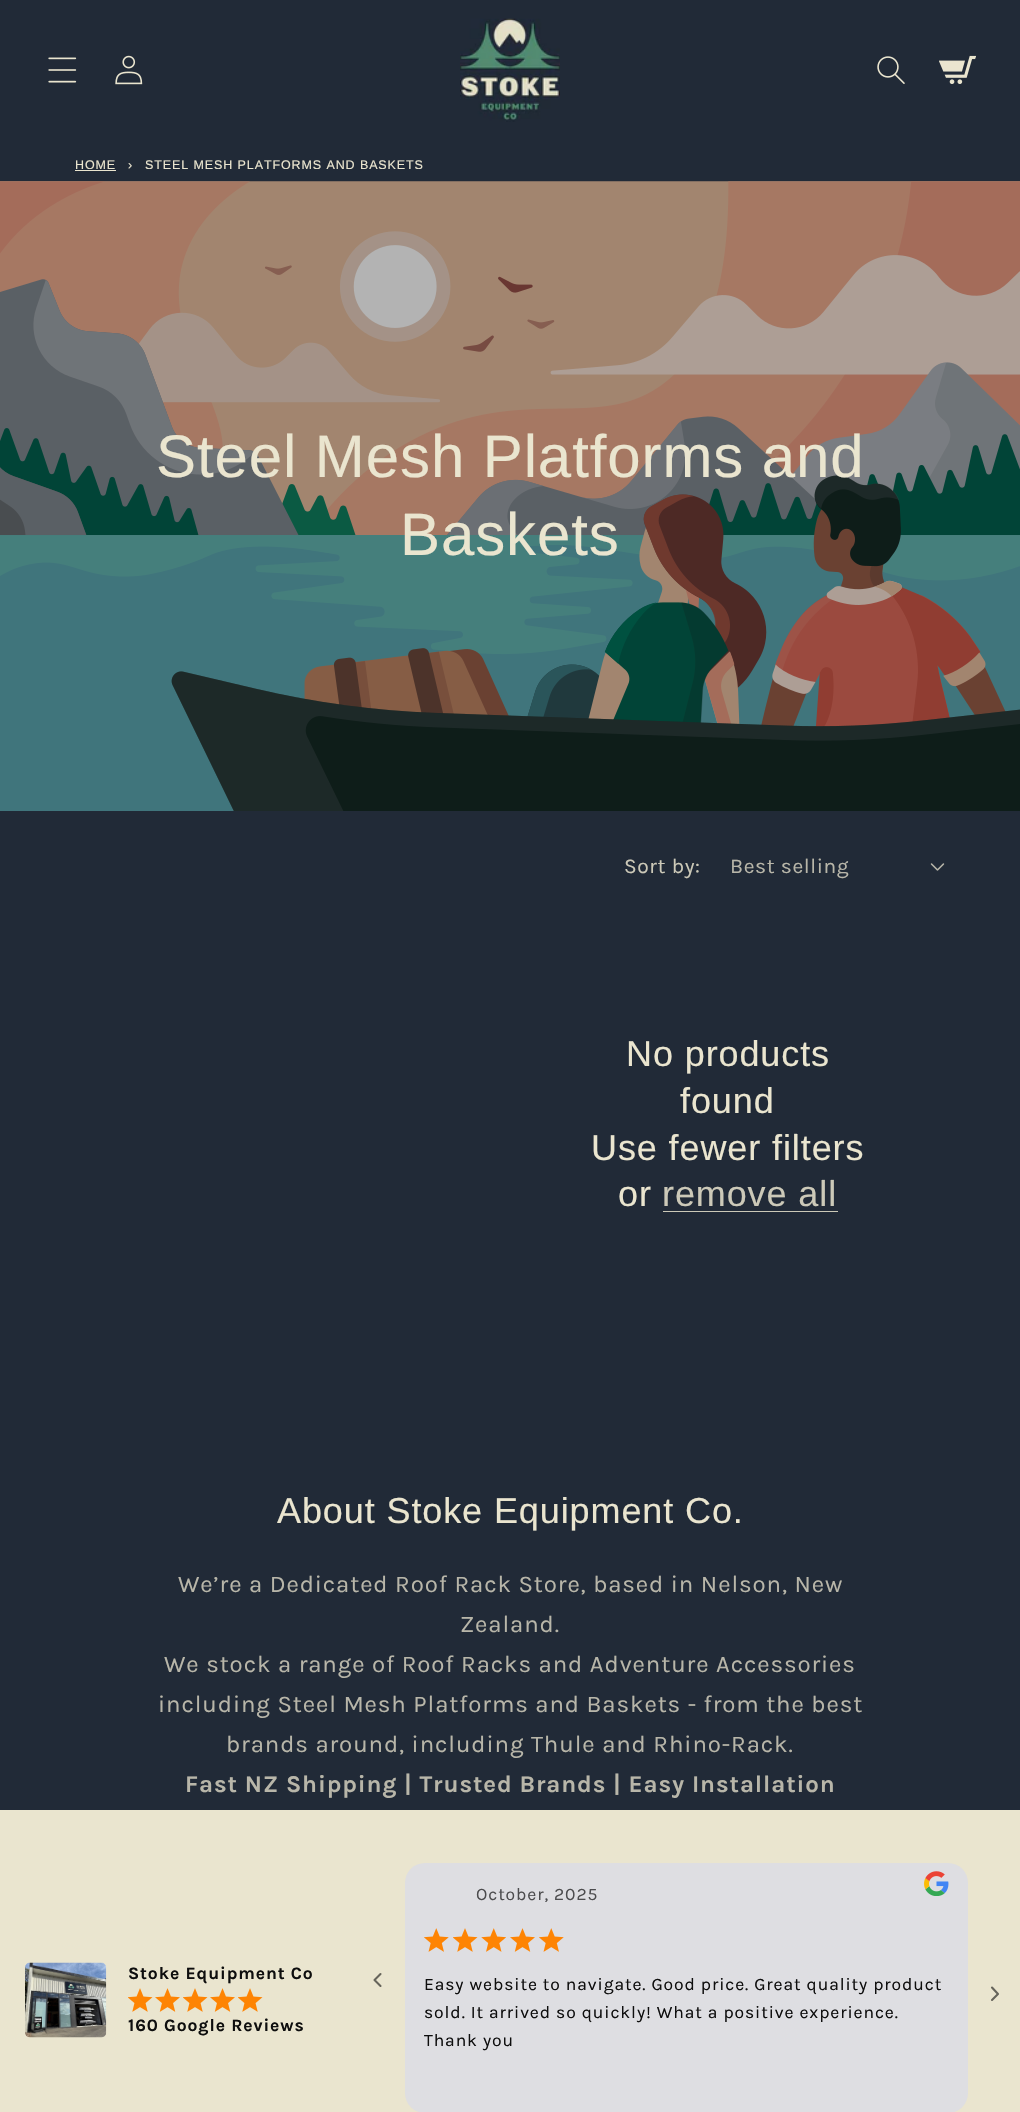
static SkFont makeFont(const char* family, int weight, float size, bool italic = false) {
  SkFontStyle style(weight, SkFontStyle::kNormal_Width,
    italic ? SkFontStyle::kItalic_Slant : SkFontStyle::kUpright_Slant);
  SkFont result(fontMgr->matchFamilyStyle(family, style), size);
  result.setSubpixel(true);
  return result;
}

static void spacedText(SkCanvas* c, const char* s, float x, float y, const SkFont& font, const SkPaint& ink, float letter, float word) {
  std::vector<SkGlyphID> glyphs(font.countText(s, strlen(s), SkTextEncoding::kUTF8));
  std::vector<float> xs(glyphs.size());
  font.textToGlyphs(s, strlen(s), SkTextEncoding::kUTF8, glyphs);
  font.getXPos(glyphs, xs, x);
  float extra = 0;
  for (size_t i = 0; i < glyphs.size(); i++) {
    xs[i] += extra;
    extra += letter + word * (glyphs[i] == font.unicharToGlyph(' '));
  }
  c->drawTextBlob(SkTextBlob::MakeFromPosHGlyphs(glyphs, xs, y, font), 0, 0, ink);
}

static void box(SkCanvas* c, float l, float t, float r, float b, SkColor color) {
  SkPaint ink(SkColor4f::FromColor(color));
  ink.setAntiAlias(true);
  c->drawRect(SkRect::MakeLTRB(l, t, r, b), ink);
}

static void roundBox(SkCanvas* c, float l, float t, float r, float b, float radius, SkColor color) {
  SkPaint ink(SkColor4f::FromColor(color));
  ink.setAntiAlias(true);
  c->drawRoundRect(SkRect::MakeLTRB(l, t, r, b), radius, radius, ink);
}

static void picture(SkCanvas* c, const char* path, float l, float t, float r, float b) {
  auto image = SkImages::DeferredFromEncodedData(SkData::MakeFromFileName(path));
  c->drawImageRect(image, SkRect::MakeLTRB(l, t, r, b), SkSamplingOptions());
}

void draw(SkCanvas* c) {
  SkPaint paint;
  paint.setAntiAlias(true);
  c->clear(0xff212a37);
  picture(c, "img_01.png", 48, 57, 77, 83);
  picture(c, "img_02.png", 115, 55, 143, 85);
  picture(c, "img_03.png", 460, 18, 560, 122);
  picture(c, "img_04.png", 877, 56, 905, 84);
  picture(c, "img_05.png", 939, 55, 976, 84);
  SkFont face1 = makeFont("Arimo", 400, 12.5f);
  paint.setColor(0xffeae5cf);
  spacedText(c, "HOME", 75, 169, face1, paint, 0.9f, 0);
  box(c, 75, 170, 116, 171, 0xffeae5cf);
  spacedText(c, "›", 128, 169, face1, paint, 0.9f, 0);
  spacedText(c, "STEEL MESH PLATFORMS AND BASKETS", 145, 169, face1, paint, 0.9f, 0);
  picture(c, "img_06.png", 0, 181, 1020, 811);
  SkFont face2 = makeFont("Arimo", 400, 60);
  spacedText(c, "Steel Mesh Platforms and", 156, 477, face2, paint, 0.9f, 0);
  spacedText(c, "Baskets", 400, 555, face2, paint, 0.9f, 0);
  SkFont face3 = makeFont("Karla", 400, 21);
  paint.setColor(0xffccc9b8);
  spacedText(c, "Sort by:", 624, 873, face3, paint, 0.6f, 0);
  paint.setColor(0xffb8b6a9);
  spacedText(c, "Best selling", 730, 873, face3, paint, 0.6f, 0);
  picture(c, "img_07.png", 930, 863, 945, 871);
  SkFont face4 = makeFont("Arimo", 400, 36);
  paint.setColor(0xffeae5cf);
  spacedText(c, "No products", 626, 1066, face4, paint, 0.9f, 0);
  spacedText(c, "found", 680, 1113, face4, paint, 0.9f, 0);
  spacedText(c, "Use fewer filters", 591, 1160, face4, paint, 0.9f, 0);
  spacedText(c, "or", 618, 1206, face4, paint, 0.9f, 0);
  paint.setColor(0xffccc9b8);
  spacedText(c, "remove all", 662, 1206, face4, paint, 0.9f, 0);
  box(c, 663, 1211, 838, 1212, 0xffccc9b8);
  paint.setColor(0xffeae5cf);
  spacedText(c, "About Stoke Equipment Co.", 277, 1523, face4, paint, 0.9f, 0);
  SkFont face5 = makeFont("Karla", 400, 24);
  paint.setColor(0xffb8b6a9);
  spacedText(c, "We’re a Dedicated Roof Rack Store, based in Nelson, New", 178, 1592, face5, paint, 0.9f, 0);
  spacedText(c, "Zealand.", 460, 1632, face5, paint, 0.9f, 0);
  spacedText(c, "We stock a range of Roof Racks and Adventure Accessories", 164, 1672, face5, paint, 0.9f, 0);
  spacedText(c, "including Steel Mesh Platforms and Baskets - from the best", 158, 1712, face5, paint, 0.9f, 0);
  spacedText(c, "brands around, including Thule and Rhino-Rack.", 226, 1752, face5, paint, 0.9f, 0);
  SkFont face6 = makeFont("Karla", 700, 24);
  spacedText(c, "Fast NZ Shipping | Trusted Brands | Easy Installation", 185, 1792, face6, paint, 0.9f, 0);
  box(c, 0, 1810, 1020, 2112, 0xffeae5cf);
  picture(c, "img_08.png", 25, 1962, 107, 2038);
  SkFont face7 = makeFont("Karla", 700, 17.5f);
  paint.setColor(0xff0e0e0e);
  spacedText(c, "Stoke Equipment Co", 128, 1979, face7, paint, 0.9f, 0);
  picture(c, "img_09.png", 128, 1988, 153, 2012);
  picture(c, "img_10.png", 155, 1988, 180, 2012);
  picture(c, "img_09.png", 183, 1988, 208, 2012);
  picture(c, "img_10.png", 210, 1988, 235, 2012);
  picture(c, "img_09.png", 238, 1988, 263, 2012);
  spacedText(c, "160 Google Reviews", 128, 2031, face7, paint, 0.9f, 0);
  paint.setStyle(SkPaint::kStroke_Style);
  paint.setStrokeWidth(2.1f);
  paint.setStrokeCap(SkPaint::kRound_Cap);
  paint.setStrokeJoin(SkPaint::kRound_Join);
  paint.setColor(0xff66645b);
  c->drawPath(SkPathBuilder().moveTo(380.5f, 1986).lineTo(374.5f, 1980).lineTo(380.5f, 1974).detach(), paint);
  roundBox(c, 405, 1863, 968, 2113, 20, 0xffdedee2);
  SkFont face8 = makeFont("Karla", 400, 17.5f);
  paint.setStyle(SkPaint::kFill_Style);
  paint.setColor(0xff4c4c4e);
  spacedText(c, "October, 2025", 476, 1900, face8, paint, 0.9f, 0);
  picture(c, "img_11.png", 924, 1871, 949, 1896);
  picture(c, "img_12.png", 424, 1928, 449, 1952);
  picture(c, "img_13.png", 453, 1928, 478, 1952);
  picture(c, "img_14.png", 481, 1928, 506, 1952);
  picture(c, "img_15.png", 510, 1928, 535, 1952);
  picture(c, "img_12.png", 539, 1928, 564, 1952);
  paint.setColor(0xff0e0e0e);
  spacedText(c, "Easy website to navigate. Good price. Great quality product", 424, 1990, face8, paint, 0.9f, 0);
  spacedText(c, "sold. It arrived so quickly! What a positive experience.", 424, 2018, face8, paint, 0.9f, 0);
  spacedText(c, "Thank you", 424, 2046, face8, paint, 0.9f, 0);
  paint.setStyle(SkPaint::kStroke_Style);
  paint.setColor(0xff66645b);
  c->drawPath(SkPathBuilder().moveTo(992, 2000).lineTo(998, 1994).lineTo(992, 1987.5f).detach(), paint);
}
